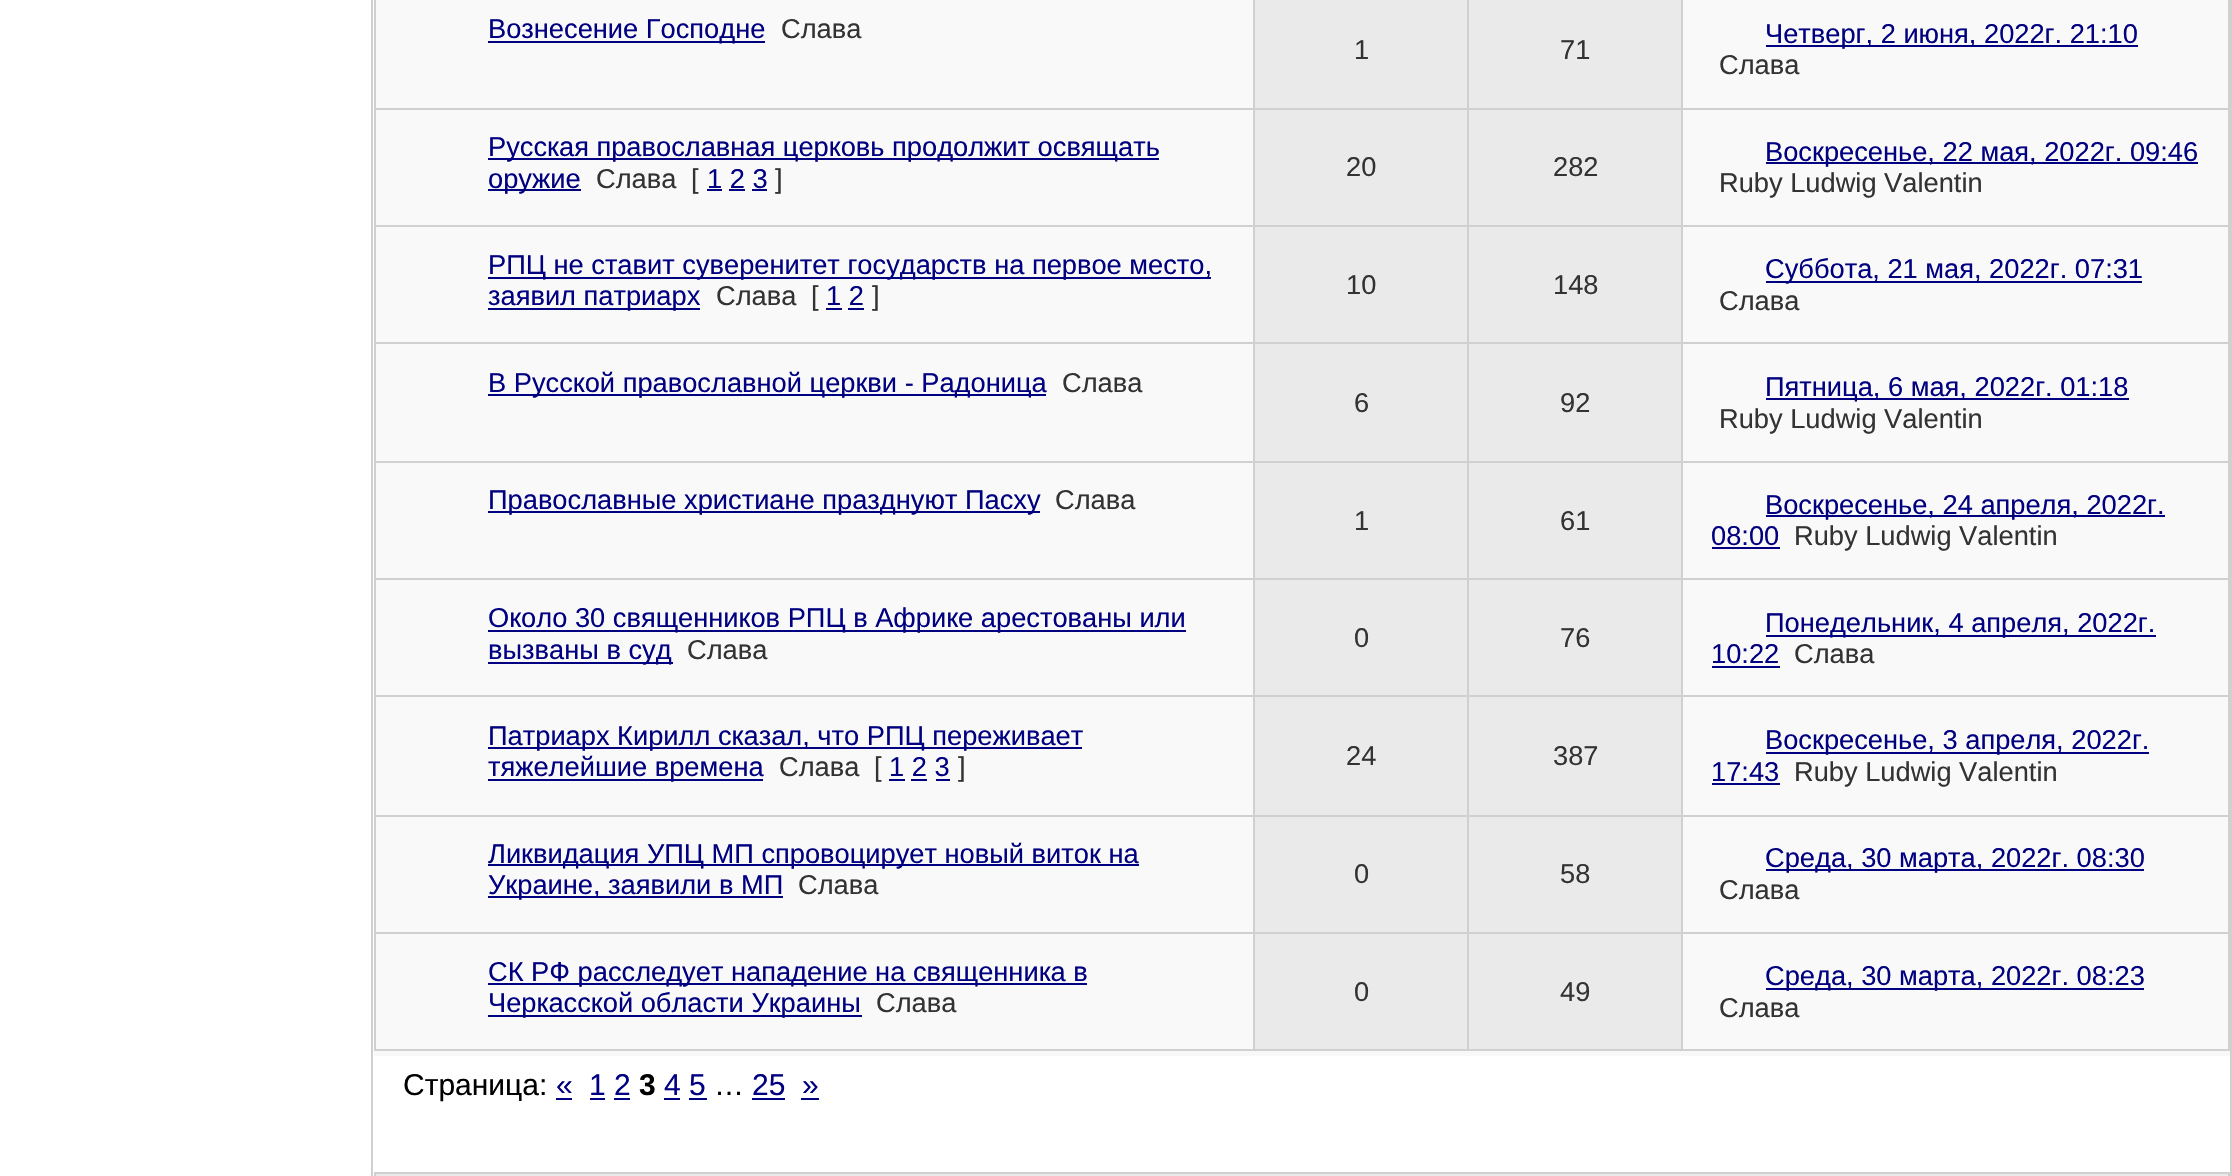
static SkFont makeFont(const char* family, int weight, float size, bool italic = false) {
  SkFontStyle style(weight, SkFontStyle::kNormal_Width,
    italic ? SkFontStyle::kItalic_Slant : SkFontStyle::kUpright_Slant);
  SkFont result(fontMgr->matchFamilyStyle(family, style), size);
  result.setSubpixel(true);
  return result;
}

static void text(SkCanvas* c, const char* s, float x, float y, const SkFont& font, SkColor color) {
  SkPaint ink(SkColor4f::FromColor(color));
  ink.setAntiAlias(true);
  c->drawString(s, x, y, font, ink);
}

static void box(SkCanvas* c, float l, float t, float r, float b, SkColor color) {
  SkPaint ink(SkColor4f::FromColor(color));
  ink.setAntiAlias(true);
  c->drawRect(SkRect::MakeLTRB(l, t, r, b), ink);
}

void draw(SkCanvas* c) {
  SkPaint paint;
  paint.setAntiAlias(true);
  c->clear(0xffffffff);
  paint.setStyle(SkPaint::kStroke_Style);
  paint.setStrokeWidth(2);
  paint.setColor(0xffd0d0d0);
  c->drawRect(SkRect::MakeLTRB(372, -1, 2231, 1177), paint);
  box(c, 374, 1051, 2230, 1056, 0xfff8f8f8);
  paint.setStyle(SkPaint::kFill_Style);
  paint.setColor(0xfff9f9f9);
  c->drawRect(SkRect::MakeLTRB(375, -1, 2229, 1050), paint);
  paint.setStyle(SkPaint::kStroke_Style);
  paint.setColor(0xffd0d0d0);
  c->drawRect(SkRect::MakeLTRB(375, -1, 2229, 1050), paint);
  box(c, 488, 41, 765, 43, 0xff000080);
  SkFont face1 = makeFont("Liberation Sans", 400, 27.25f);
  text(c, "Вознесение Господне", 488, 38, face1, 0xff000080);
  text(c, "Слава", 781, 38, face1, 0xff333333);
  box(c, 1255, 0, 1467, 108, 0xffeaeaea);
  box(c, 1253, 0, 1255, 108, 0xffd0d0d0);
  text(c, "1", 1354, 59, face1, 0xff333333);
  box(c, 1469, 0, 1681, 108, 0xffeaeaea);
  box(c, 1467, 0, 1469, 108, 0xffd0d0d0);
  text(c, "71", 1560, 59, face1, 0xff333333);
  box(c, 376, 108, 2228, 110, 0xffd0d0d0);
  box(c, 376, 225, 2228, 227, 0xffd0d0d0);
  box(c, 376, 342, 2228, 344, 0xffd0d0d0);
  box(c, 376, 461, 2228, 463, 0xffd0d0d0);
  box(c, 376, 578, 2228, 580, 0xffd0d0d0);
  box(c, 376, 695, 2228, 697, 0xffd0d0d0);
  box(c, 376, 815, 2228, 817, 0xffd0d0d0);
  box(c, 376, 932, 2228, 934, 0xffd0d0d0);
  box(c, 1681, 0, 1683, 1049, 0xffd0d0d0);
  box(c, 1766, 45, 2138, 47, 0xff000080);
  text(c, "Четверг, 2 июня, 2022г. 21:10", 1765, 43, face1, 0xff000080);
  text(c, "Слава", 1719, 74, face1, 0xff333333);
  box(c, 488, 158, 1159, 160, 0xff000080);
  text(c, "Русская православная церковь продолжит освящать", 488, 156, face1, 0xff000080);
  box(c, 488, 189, 581, 191, 0xff000080);
  text(c, "оружие", 488, 188, face1, 0xff000080);
  text(c, "Слава", 596, 188, face1, 0xff333333);
  text(c, "[", 691, 188, face1, 0xff333333);
  text(c, "1 2 3", 707, 188, face1, 0xff000080);
  box(c, 707, 189, 722, 191, 0xff000080);
  box(c, 729, 189, 745, 191, 0xff000080);
  box(c, 752, 189, 767, 191, 0xff000080);
  text(c, "]", 775, 188, face1, 0xff333333);
  box(c, 1255, 110, 1467, 225, 0xffeaeaea);
  box(c, 1253, 108, 1255, 225, 0xffd0d0d0);
  text(c, "20", 1346, 176, face1, 0xff333333);
  box(c, 1469, 110, 1681, 225, 0xffeaeaea);
  box(c, 1467, 108, 1469, 225, 0xffd0d0d0);
  text(c, "282", 1553, 176, face1, 0xff333333);
  box(c, 1766, 162, 2198, 164, 0xff000080);
  text(c, "Воскресенье, 22 мая, 2022г. 09:46", 1765, 161, face1, 0xff000080);
  text(c, "Ruby Ludwig Valentin", 1719, 192, face1, 0xff333333);
  box(c, 488, 277, 1211, 279, 0xff000080);
  text(c, "РПЦ не ставит суверенитет государств на первое место,", 488, 274, face1, 0xff000080);
  box(c, 488, 308, 700, 310, 0xff000080);
  text(c, "заявил патриарх", 488, 305, face1, 0xff000080);
  text(c, "Слава", 716, 305, face1, 0xff333333);
  text(c, "[", 811, 305, face1, 0xff333333);
  text(c, "1 2", 826, 305, face1, 0xff000080);
  box(c, 826, 308, 842, 310, 0xff000080);
  box(c, 848, 308, 864, 310, 0xff000080);
  text(c, "]", 872, 305, face1, 0xff333333);
  box(c, 1255, 227, 1467, 342, 0xffeaeaea);
  box(c, 1253, 225, 1255, 342, 0xffd0d0d0);
  text(c, "10", 1346, 294, face1, 0xff333333);
  box(c, 1469, 227, 1681, 342, 0xffeaeaea);
  box(c, 1467, 225, 1469, 342, 0xffd0d0d0);
  text(c, "148", 1553, 294, face1, 0xff333333);
  box(c, 1766, 281, 2142, 283, 0xff000080);
  text(c, "Суббота, 21 мая, 2022г. 07:31", 1765, 278, face1, 0xff000080);
  text(c, "Слава", 1719, 310, face1, 0xff333333);
  box(c, 488, 394, 1046, 396, 0xff000080);
  text(c, "В Русской православной церкви - Радоница", 488, 392, face1, 0xff000080);
  text(c, "Слава", 1062, 392, face1, 0xff333333);
  box(c, 1255, 344, 1467, 461, 0xffeaeaea);
  box(c, 1253, 342, 1255, 461, 0xffd0d0d0);
  text(c, "6", 1354, 412, face1, 0xff333333);
  box(c, 1469, 344, 1681, 461, 0xffeaeaea);
  box(c, 1467, 342, 1469, 461, 0xffd0d0d0);
  text(c, "92", 1560, 412, face1, 0xff333333);
  box(c, 1766, 398, 2129, 400, 0xff000080);
  text(c, "Пятница, 6 мая, 2022г. 01:18", 1765, 396, face1, 0xff000080);
  text(c, "Ruby Ludwig Valentin", 1719, 428, face1, 0xff333333);
  box(c, 488, 511, 1040, 513, 0xff000080);
  text(c, "Православные христиане празднуют Пасху", 488, 509, face1, 0xff000080);
  text(c, "Слава", 1055, 509, face1, 0xff333333);
  box(c, 1255, 463, 1467, 578, 0xffeaeaea);
  box(c, 1253, 461, 1255, 578, 0xffd0d0d0);
  text(c, "1", 1354, 530, face1, 0xff333333);
  box(c, 1469, 463, 1681, 578, 0xffeaeaea);
  box(c, 1467, 461, 1469, 578, 0xffd0d0d0);
  text(c, "61", 1560, 530, face1, 0xff333333);
  box(c, 1766, 515, 2165, 517, 0xff000080);
  text(c, "Воскресенье, 24 апреля, 2022г.", 1765, 514, face1, 0xff000080);
  text(c, "08:00", 1711, 545, face1, 0xff000080);
  box(c, 1712, 547, 1780, 549, 0xff000080);
  text(c, "Ruby Ludwig Valentin", 1794, 545, face1, 0xff333333);
  box(c, 488, 630, 1186, 632, 0xff000080);
  text(c, "Около 30 священников РПЦ в Африке арестованы или", 488, 627, face1, 0xff000080);
  box(c, 488, 662, 673, 664, 0xff000080);
  text(c, "вызваны в суд", 488, 659, face1, 0xff000080);
  text(c, "Слава", 687, 659, face1, 0xff333333);
  box(c, 1255, 580, 1467, 695, 0xffeaeaea);
  box(c, 1253, 578, 1255, 695, 0xffd0d0d0);
  text(c, "0", 1354, 647, face1, 0xff333333);
  box(c, 1469, 580, 1681, 695, 0xffeaeaea);
  box(c, 1467, 578, 1469, 695, 0xffd0d0d0);
  text(c, "76", 1560, 647, face1, 0xff333333);
  box(c, 1766, 635, 2156, 637, 0xff000080);
  text(c, "Понедельник, 4 апреля, 2022г.", 1765, 632, face1, 0xff000080);
  text(c, "10:22", 1711, 663, face1, 0xff000080);
  box(c, 1712, 666, 1780, 668, 0xff000080);
  text(c, "Слава", 1794, 663, face1, 0xff333333);
  box(c, 488, 747, 1082, 749, 0xff000080);
  text(c, "Патриарх Кирилл сказал, что РПЦ переживает", 488, 745, face1, 0xff000080);
  box(c, 488, 779, 763, 781, 0xff000080);
  text(c, "тяжелейшие времена", 488, 776, face1, 0xff000080);
  text(c, "Слава", 779, 776, face1, 0xff333333);
  text(c, "[", 874, 776, face1, 0xff333333);
  text(c, "1 2 3", 889, 776, face1, 0xff000080);
  box(c, 889, 779, 905, 781, 0xff000080);
  box(c, 911, 779, 927, 781, 0xff000080);
  box(c, 936, 779, 950, 781, 0xff000080);
  text(c, "]", 958, 776, face1, 0xff333333);
  box(c, 1255, 697, 1467, 815, 0xffeaeaea);
  box(c, 1253, 695, 1255, 815, 0xffd0d0d0);
  text(c, "24", 1346, 765, face1, 0xff333333);
  box(c, 1469, 697, 1681, 815, 0xffeaeaea);
  box(c, 1467, 695, 1469, 815, 0xffd0d0d0);
  text(c, "387", 1553, 765, face1, 0xff333333);
  box(c, 1766, 752, 2149, 754, 0xff000080);
  text(c, "Воскресенье, 3 апреля, 2022г.", 1765, 749, face1, 0xff000080);
  text(c, "17:43", 1711, 781, face1, 0xff000080);
  box(c, 1712, 783, 1780, 785, 0xff000080);
  text(c, "Ruby Ludwig Valentin", 1794, 781, face1, 0xff333333);
  box(c, 488, 864, 1139, 866, 0xff000080);
  text(c, "Ликвидация УПЦ МП спровоцирует новый виток на", 488, 863, face1, 0xff000080);
  box(c, 488, 896, 783, 898, 0xff000080);
  text(c, "Украине, заявили в МП", 488, 894, face1, 0xff000080);
  text(c, "Слава", 798, 894, face1, 0xff333333);
  box(c, 1255, 817, 1467, 932, 0xffeaeaea);
  box(c, 1253, 815, 1255, 932, 0xffd0d0d0);
  text(c, "0", 1354, 883, face1, 0xff333333);
  box(c, 1469, 817, 1681, 932, 0xffeaeaea);
  box(c, 1467, 815, 1469, 932, 0xffd0d0d0);
  text(c, "58", 1560, 883, face1, 0xff333333);
  box(c, 1766, 869, 2144, 871, 0xff000080);
  text(c, "Среда, 30 марта, 2022г. 08:30", 1765, 867, face1, 0xff000080);
  text(c, "Слава", 1719, 899, face1, 0xff333333);
  box(c, 488, 983, 1087, 985, 0xff000080);
  text(c, "СК РФ расследует нападение на священника в", 488, 981, face1, 0xff000080);
  box(c, 488, 1015, 862, 1017, 0xff000080);
  text(c, "Черкасской области Украины", 488, 1012, face1, 0xff000080);
  text(c, "Слава", 876, 1012, face1, 0xff333333);
  box(c, 1255, 934, 1467, 1049, 0xffeaeaea);
  box(c, 1253, 932, 1255, 1049, 0xffd0d0d0);
  text(c, "0", 1354, 1001, face1, 0xff333333);
  box(c, 1469, 934, 1681, 1049, 0xffeaeaea);
  box(c, 1467, 932, 1469, 1049, 0xffd0d0d0);
  text(c, "49", 1560, 1001, face1, 0xff333333);
  box(c, 1766, 988, 2144, 990, 0xff000080);
  text(c, "Среда, 30 марта, 2022г. 08:23", 1765, 985, face1, 0xff000080);
  text(c, "Слава", 1719, 1017, face1, 0xff333333);
  SkFont face2 = makeFont("Liberation Sans", 400, 30);
  text(c, "Страница:", 403, 1095, face2, 0xff000000);
  text(c, "«", 556, 1095, face2, 0xff000080);
  box(c, 556, 1098, 572, 1100, 0xff000080);
  text(c, "1 2", 589, 1095, face2, 0xff000080);
  box(c, 590, 1098, 605, 1100, 0xff000080);
  SkFont face3 = makeFont("Liberation Sans", 700, 30);
  text(c, "3", 639, 1095, face3, 0xff000000);
  text(c, "4 5", 664, 1095, face2, 0xff000080);
  box(c, 664, 1098, 680, 1100, 0xff000080);
  text(c, "…", 714, 1095, face2, 0xff000000);
  text(c, "25", 752, 1095, face2, 0xff000080);
  box(c, 752, 1098, 785, 1100, 0xff000080);
  text(c, "»", 802, 1095, face2, 0xff000080);
  box(c, 801, 1098, 819, 1100, 0xff000080);
  box(c, 614, 1098, 630, 1100, 0xff000080);
  box(c, 689, 1098, 707, 1100, 0xff000080);
  box(c, 374, 1174, 2230, 1176, 0xffeaeaea);
  box(c, 374, 1172, 2230, 1174, 0xffd0d0d0);
  box(c, 2228, 1172, 2230, 1176, 0xffd0d0d0);
  box(c, 374, 1172, 376, 1176, 0xffd0d0d0);
}
